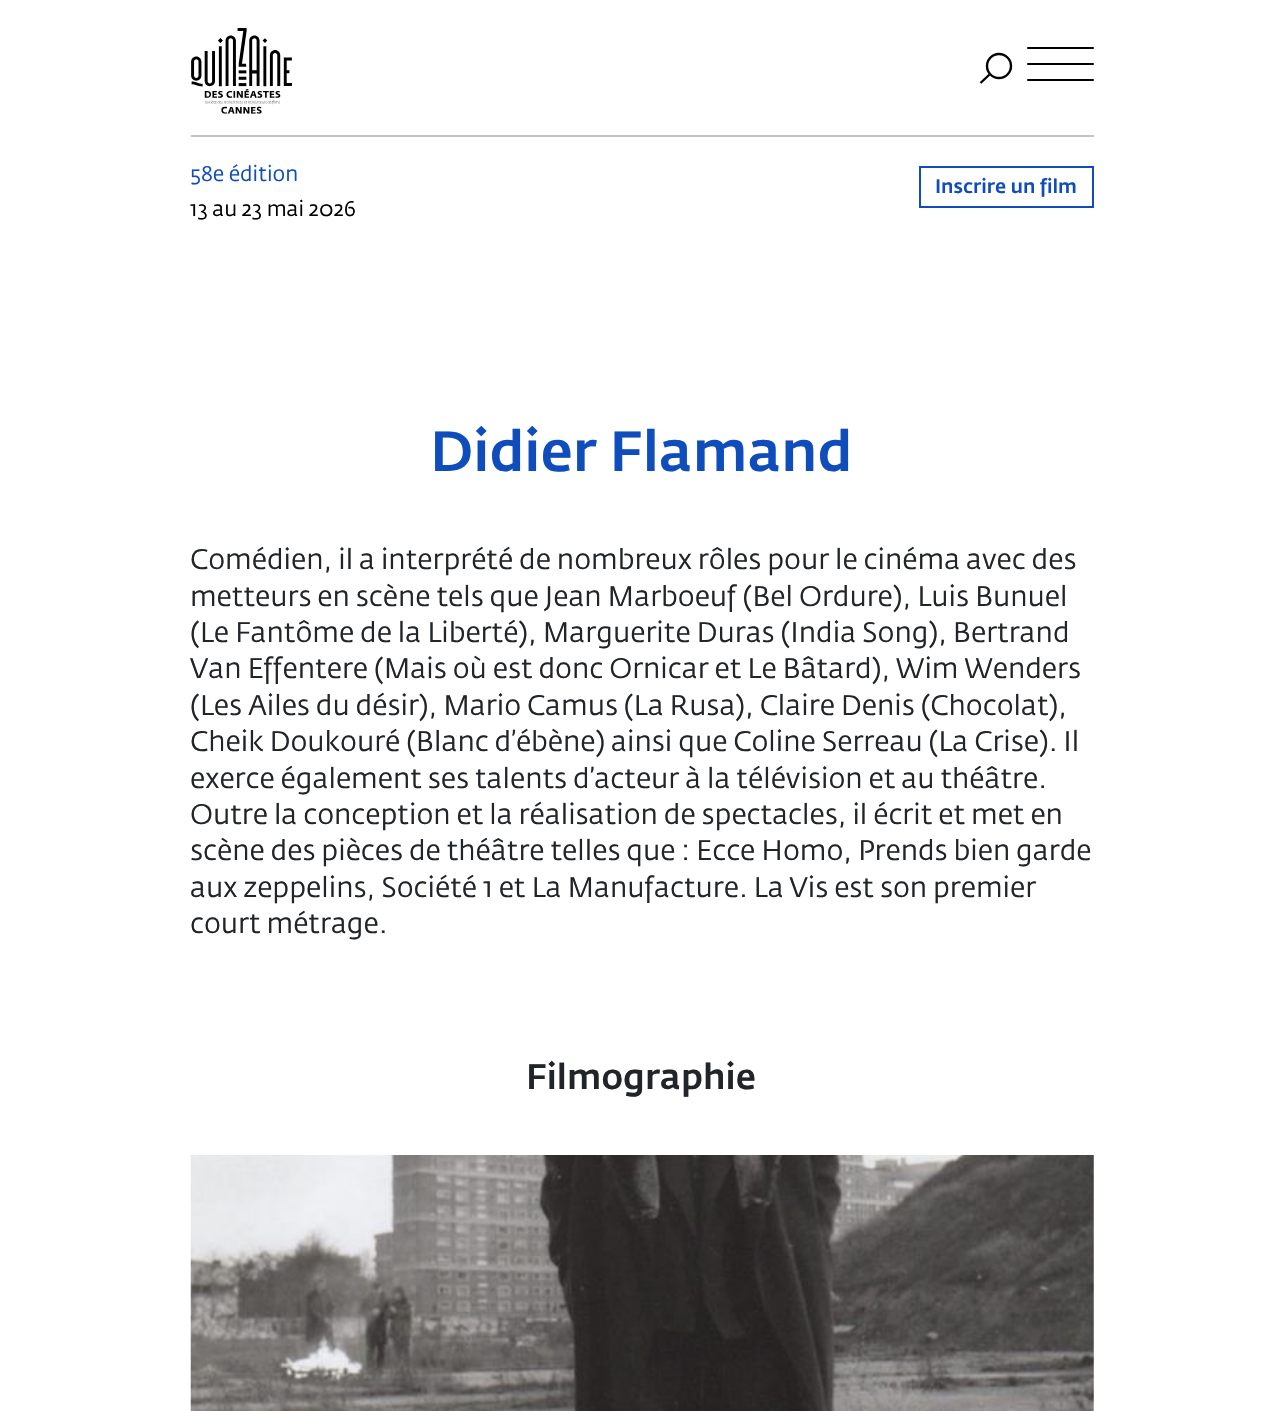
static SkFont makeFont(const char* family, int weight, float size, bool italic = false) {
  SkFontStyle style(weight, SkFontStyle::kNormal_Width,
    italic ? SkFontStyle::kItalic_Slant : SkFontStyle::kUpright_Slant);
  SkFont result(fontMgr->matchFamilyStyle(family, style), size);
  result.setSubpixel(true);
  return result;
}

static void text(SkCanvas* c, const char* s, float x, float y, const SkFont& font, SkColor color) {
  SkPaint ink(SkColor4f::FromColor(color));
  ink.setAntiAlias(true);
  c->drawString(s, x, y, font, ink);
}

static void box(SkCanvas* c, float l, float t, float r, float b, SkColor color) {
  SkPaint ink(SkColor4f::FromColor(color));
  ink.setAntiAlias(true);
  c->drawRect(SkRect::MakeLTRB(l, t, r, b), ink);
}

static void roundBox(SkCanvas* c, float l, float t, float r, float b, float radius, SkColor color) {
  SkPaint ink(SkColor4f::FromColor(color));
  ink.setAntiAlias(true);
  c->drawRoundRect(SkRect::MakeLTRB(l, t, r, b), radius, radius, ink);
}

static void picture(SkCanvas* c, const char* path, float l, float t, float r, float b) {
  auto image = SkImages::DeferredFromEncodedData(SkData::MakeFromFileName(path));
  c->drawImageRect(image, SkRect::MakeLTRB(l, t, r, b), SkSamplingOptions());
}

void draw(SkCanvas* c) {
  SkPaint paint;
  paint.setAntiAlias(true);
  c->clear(0xffffffff);
  box(c, 191, 135, 1094, 137, 0xffc3c3c3);
  picture(c, "img_01.png", 191, 28, 292, 114);
  paint.setStyle(SkPaint::kStroke_Style);
  paint.setStrokeWidth(2.4f);
  paint.setColor(0xff000000);
  c->drawCircle(999, 66, 12, paint);
  c->drawPath(SkPathBuilder().moveTo(980.5f, 83).lineTo(989.5f, 74.5f).detach(), paint);
  roundBox(c, 1027, 47, 1094, 49, 1, 0xff000000);
  roundBox(c, 1027, 63, 1094, 65, 1, 0xff000000);
  roundBox(c, 1027, 79, 1094, 81, 1, 0xff000000);
  SkFont face1 = makeFont("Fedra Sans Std", 400, 21);
  text(c, "58e édition", 190, 181, face1, 0xff0f4dbc);
  text(c, "13 au 23 mai 2026", 190, 216, face1, 0xff000000);
  paint.setStrokeWidth(2);
  paint.setColor(0xff0f4dbc);
  c->drawRect(SkRect::MakeLTRB(920, 167, 1093, 207), paint);
  SkFont face2 = makeFont("Fedra Sans Std", 500, 19.25f);
  text(c, "Inscrire un film", 935, 193, face2, 0xff0f4dbc);
  SkFont face3 = makeFont("Fedra Sans Std", 500, 56);
  text(c, "Didier Flamand", 430, 471, face3, 0xff0f4dbc);
  SkFont face4 = makeFont("Fedra Sans Std", 400, 28);
  text(c, "Comédien, il a interprété de nombreux rôles pour le cinéma avec des", 190, 569, face4, 0xff212529);
  text(c, "metteurs en scène tels que Jean Marboeuf (Bel Ordure), Luis Bunuel", 190, 606, face4, 0xff212529);
  text(c, "(Le Fantôme de la Liberté), Marguerite Duras (India Song), Bertrand", 190, 642, face4, 0xff212529);
  text(c, "Van Effentere (Mais où est donc Ornicar et Le Bâtard), Wim Wenders", 190, 678, face4, 0xff212529);
  text(c, "(Les Ailes du désir), Mario Camus (La Rusa), Claire Denis (Chocolat),", 190, 715, face4, 0xff212529);
  text(c, "Cheik Doukouré (Blanc d’ébène) ainsi que Coline Serreau (La Crise). Il", 190, 751, face4, 0xff212529);
  text(c, "exerce également ses talents d’acteur à la télévision et au théâtre.", 190, 788, face4, 0xff212529);
  text(c, "Outre la conception et la réalisation de spectacles, il écrit et met en", 190, 824, face4, 0xff212529);
  text(c, "scène des pièces de théâtre telles que : Ecce Homo, Prends bien garde", 190, 860, face4, 0xff212529);
  text(c, "aux zeppelins, Société 1 et La Manufacture. La Vis est son premier", 190, 897, face4, 0xff212529);
  text(c, "court métrage.", 190, 933, face4, 0xff212529);
  SkFont face5 = makeFont("Fedra Sans Std", 500, 35);
  text(c, "Filmographie", 526, 1089, face5, 0xff212529);
  picture(c, "img_02.png", 190, 1155, 1094, 1411);
}
